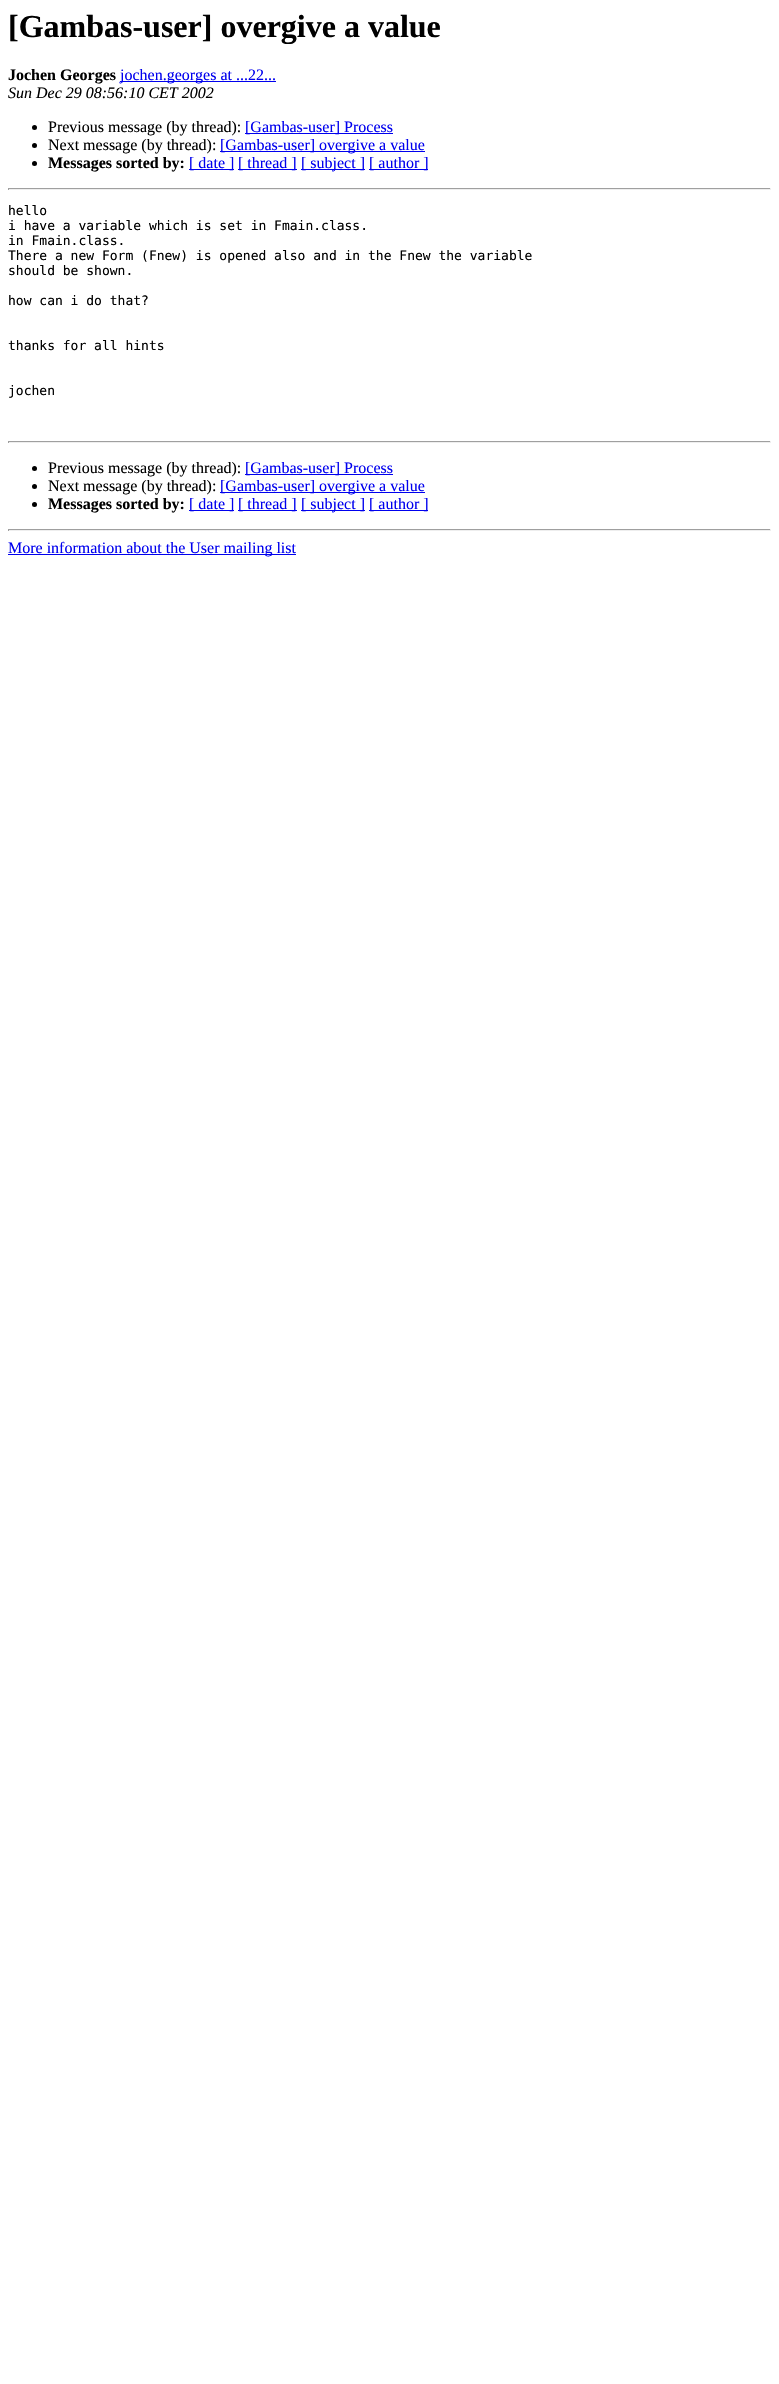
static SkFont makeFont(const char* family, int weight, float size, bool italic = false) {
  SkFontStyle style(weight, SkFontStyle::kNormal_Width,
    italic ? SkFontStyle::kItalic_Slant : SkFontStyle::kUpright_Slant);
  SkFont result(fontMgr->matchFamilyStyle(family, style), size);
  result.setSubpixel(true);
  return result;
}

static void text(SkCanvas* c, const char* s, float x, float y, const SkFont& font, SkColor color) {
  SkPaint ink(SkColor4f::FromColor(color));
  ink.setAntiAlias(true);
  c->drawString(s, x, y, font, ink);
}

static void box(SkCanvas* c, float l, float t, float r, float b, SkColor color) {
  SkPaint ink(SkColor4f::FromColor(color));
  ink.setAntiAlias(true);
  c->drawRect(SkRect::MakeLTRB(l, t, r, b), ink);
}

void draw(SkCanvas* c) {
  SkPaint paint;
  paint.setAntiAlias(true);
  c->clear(0xffffffff);
  SkFont face1 = makeFont("Liberation Serif", 700, 32);
  text(c, "[Gambas-user] overgive a value", 8, 37, face1, 0xff000000);
  SkFont face2 = makeFont("Liberation Serif", 700, 16);
  text(c, "Jochen Georges", 8, 80, face2, 0xff000000);
  box(c, 120, 81, 276, 82, 0xff0000ee);
  SkFont face3 = makeFont("Liberation Serif", 400, 16);
  text(c, "jochen.georges at ...22...", 120, 80, face3, 0xff0000ee);
  SkFont face4 = makeFont("Liberation Serif", 400, 16, true);
  text(c, "Sun Dec 29 08:56:10 CET 2002", 8, 98, face4, 0xff000000);
  paint.setColor(0xff000000);
  c->drawCircle(34.5f, 127.5f, 2.5f, paint);
  text(c, "Previous message (by thread):", 48, 132, face3, 0xff000000);
  box(c, 245, 133, 393, 134, 0xff0000ee);
  text(c, "[Gambas-user] Process", 245, 132, face3, 0xff0000ee);
  c->drawCircle(34.5f, 145.5f, 2.5f, paint);
  text(c, "Next message (by thread):", 48, 150, face3, 0xff000000);
  box(c, 220, 151, 425, 152, 0xff0000ee);
  text(c, "[Gambas-user] overgive a value", 220, 150, face3, 0xff0000ee);
  c->drawCircle(34.5f, 163.5f, 2.5f, paint);
  text(c, "Messages sorted by:", 48, 168, face2, 0xff000000);
  box(c, 189, 169, 234, 170, 0xff0000ee);
  text(c, "[ date ]", 189, 168, face3, 0xff0000ee);
  box(c, 238, 169, 297, 170, 0xff0000ee);
  text(c, "[ thread ]", 238, 168, face3, 0xff0000ee);
  box(c, 301, 169, 365, 170, 0xff0000ee);
  text(c, "[ subject ]", 301, 168, face3, 0xff0000ee);
  box(c, 369, 169, 428, 170, 0xff0000ee);
  text(c, "[ author ]", 369, 168, face3, 0xff0000ee);
  box(c, 8, 188, 771, 189, 0xff9f9f9f);
  box(c, 770, 188, 771, 190, 0xffeeeeee);
  box(c, 8, 189, 771, 190, 0xffeeeeee);
  box(c, 8, 188, 9, 190, 0xff9f9f9f);
  SkFont face5 = makeFont("DejaVu Sans Mono", 400, 13);
  text(c, "hello", 8, 215, face5, 0xff000000);
  text(c, "i have a variable which is set in Fmain.class.", 8, 230, face5, 0xff000000);
  text(c, "in Fmain.class.", 8, 245, face5, 0xff000000);
  text(c, "There a new Form (Fnew) is opened also and in the Fnew the variable", 8, 260, face5, 0xff000000);
  text(c, "should be shown.", 8, 275, face5, 0xff000000);
  text(c, "how can i do that?", 8, 305, face5, 0xff000000);
  text(c, "thanks for all hints", 8, 350, face5, 0xff000000);
  text(c, "jochen", 8, 395, face5, 0xff000000);
  box(c, 8, 441, 771, 442, 0xff9f9f9f);
  box(c, 770, 441, 771, 443, 0xffeeeeee);
  box(c, 8, 442, 771, 443, 0xffeeeeee);
  box(c, 8, 441, 9, 443, 0xff9f9f9f);
  c->drawCircle(34.5f, 468.5f, 2.5f, paint);
  text(c, "Previous message (by thread):", 48, 473, face3, 0xff000000);
  box(c, 245, 474, 393, 475, 0xff0000ee);
  text(c, "[Gambas-user] Process", 245, 473, face3, 0xff0000ee);
  c->drawCircle(34.5f, 486.5f, 2.5f, paint);
  text(c, "Next message (by thread):", 48, 491, face3, 0xff000000);
  box(c, 220, 492, 425, 493, 0xff0000ee);
  text(c, "[Gambas-user] overgive a value", 220, 491, face3, 0xff0000ee);
  c->drawCircle(34.5f, 504.5f, 2.5f, paint);
  text(c, "Messages sorted by:", 48, 509, face2, 0xff000000);
  box(c, 189, 510, 234, 511, 0xff0000ee);
  text(c, "[ date ]", 189, 509, face3, 0xff0000ee);
  box(c, 238, 510, 297, 511, 0xff0000ee);
  text(c, "[ thread ]", 238, 509, face3, 0xff0000ee);
  box(c, 301, 510, 365, 511, 0xff0000ee);
  text(c, "[ subject ]", 301, 509, face3, 0xff0000ee);
  box(c, 369, 510, 428, 511, 0xff0000ee);
  text(c, "[ author ]", 369, 509, face3, 0xff0000ee);
  box(c, 8, 529, 771, 530, 0xff9f9f9f);
  box(c, 770, 529, 771, 531, 0xffeeeeee);
  box(c, 8, 530, 771, 531, 0xffeeeeee);
  box(c, 8, 529, 9, 531, 0xff9f9f9f);
  box(c, 8, 554, 296, 555, 0xff0000ee);
  text(c, "More information about the User mailing list", 8, 553, face3, 0xff0000ee);
}
